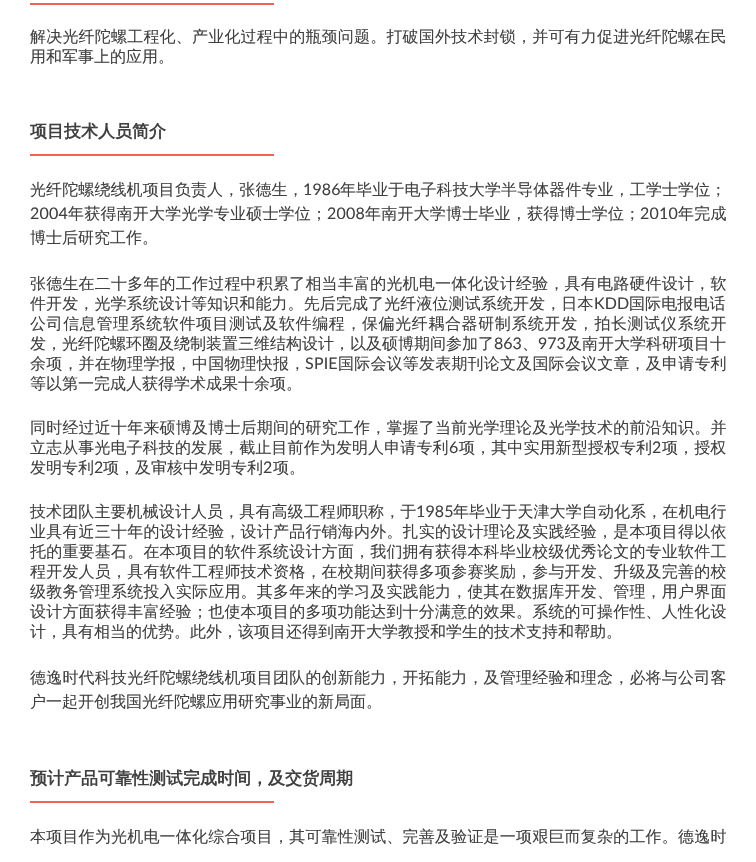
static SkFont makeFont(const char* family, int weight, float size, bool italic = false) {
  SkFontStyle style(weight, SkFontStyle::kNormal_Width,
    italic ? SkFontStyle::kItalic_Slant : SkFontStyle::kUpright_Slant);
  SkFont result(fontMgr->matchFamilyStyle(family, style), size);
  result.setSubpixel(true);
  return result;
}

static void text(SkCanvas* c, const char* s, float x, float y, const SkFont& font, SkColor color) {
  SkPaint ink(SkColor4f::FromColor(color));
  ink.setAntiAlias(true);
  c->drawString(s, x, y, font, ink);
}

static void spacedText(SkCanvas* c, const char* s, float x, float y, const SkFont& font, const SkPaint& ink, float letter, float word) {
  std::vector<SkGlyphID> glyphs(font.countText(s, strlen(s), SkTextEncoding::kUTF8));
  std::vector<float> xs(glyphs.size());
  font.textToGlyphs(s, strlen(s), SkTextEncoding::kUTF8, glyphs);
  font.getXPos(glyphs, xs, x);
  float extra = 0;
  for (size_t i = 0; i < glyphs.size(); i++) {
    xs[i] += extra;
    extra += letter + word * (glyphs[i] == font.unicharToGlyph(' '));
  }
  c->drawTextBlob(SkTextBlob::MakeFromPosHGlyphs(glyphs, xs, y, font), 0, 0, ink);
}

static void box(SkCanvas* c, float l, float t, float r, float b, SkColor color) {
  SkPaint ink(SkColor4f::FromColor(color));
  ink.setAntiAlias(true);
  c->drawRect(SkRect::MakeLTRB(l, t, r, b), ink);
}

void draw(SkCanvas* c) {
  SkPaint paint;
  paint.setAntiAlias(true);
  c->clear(0xffffffff);
  box(c, 30, 3, 274, 5, 0xffe96656);
  SkFont face1 = makeFont("WenQuanYi Zen Hei", 500, 16);
  paint.setColor(0xff404040);
  spacedText(c, "解决光纤陀螺工程化、产业化过程中的瓶颈问题。打破国外技术封锁，并可有力促进光纤陀螺在民", 30, 42, face1, paint, 0.2f, 0);
  text(c, "用和军事上的应用。", 30, 62, face1, 0xff404040);
  SkFont face2 = makeFont("WenQuanYi Zen Hei", 700, 17);
  text(c, "项目技术人员简介", 30, 137, face2, 0xff404040);
  box(c, 30, 154, 274, 156, 0xffe96656);
  spacedText(c, "光纤陀螺绕线机项目负责人，张德生，", 30, 195, face1, paint, 0.1f, 0);
  SkFont face3 = makeFont("Lato", 400, 16);
  spacedText(c, "1986", 303, 195, face3, paint, 0.1f, 0);
  spacedText(c, "年毕业于电子科技大学半导体器件专业，工学士学位；", 340, 195, face1, paint, 0.1f, 0);
  spacedText(c, "2004", 30, 219, face3, paint, 0.2f, 0);
  spacedText(c, "年获得南开大学光学专业硕士学位；", 68, 219, face1, paint, 0.2f, 0);
  spacedText(c, "2008", 327, 219, face3, paint, 0.2f, 0);
  spacedText(c, "年南开大学博士毕业，获得博士学位；", 365, 219, face1, paint, 0.2f, 0);
  spacedText(c, "2010", 640, 219, face3, paint, 0.2f, 0);
  spacedText(c, "年完成", 678, 219, face1, paint, 0.2f, 0);
  text(c, "博士后研究工作。", 30, 243, face1, 0xff404040);
  spacedText(c, "张德生在二十多年的工作过程中积累了相当丰富的光机电一体化设计经验，具有电路硬件设计，软", 30, 289, face1, paint, 0.2f, 0);
  spacedText(c, "件开发，光学系统设计等知识和能力。先后完成了光纤液位测试系统开发，日本", 30, 309, face1, paint, 0.1f, 0);
  spacedText(c, "KDD", 594, 309, face3, paint, 0.1f, 0);
  spacedText(c, "国际电报电话", 629, 309, face1, paint, 0.1f, 0);
  spacedText(c, "公司信息管理系统软件项目测试及软件编程，保偏光纤耦合器研制系统开发，拍长测试仪系统开", 30, 329, face1, paint, 0.6f, 0);
  text(c, "发，光纤陀螺环圈及绕制装置三维结构设计，以及硕博期间参加了", 30, 349, face1, 0xff404040);
  text(c, "863", 494, 349, face3, 0xff404040);
  text(c, "、", 522, 349, face1, 0xff404040);
  text(c, "973", 538, 349, face3, 0xff404040);
  text(c, "及南开大学科研项目十", 566, 349, face1, 0xff404040);
  spacedText(c, "余项，并在物理学报，中国物理快报，", 30, 369, face1, paint, 0.2f, 0);
  spacedText(c, "SPIE", 305, 369, face3, paint, 0.2f, 0);
  spacedText(c, "国际会议等发表期刊论文及国际会议文章，及申请专利", 338, 369, face1, paint, 0.2f, 0);
  text(c, "等以第一完成人获得学术成果十余项。", 30, 389, face1, 0xff404040);
  spacedText(c, "同时经过近十年来硕博及博士后期间的研究工作，掌握了当前光学理论及光学技术的前沿知识。并", 30, 433, face1, paint, 0.2f, 0);
  spacedText(c, "立志从事光电子科技的发展，截止目前作为发明人申请专利", 30, 453, face1, paint, 0.1f, 0);
  spacedText(c, "6", 449, 453, face3, paint, 0.1f, 0);
  spacedText(c, "项，其中实用新型授权专利", 459, 453, face1, paint, 0.1f, 0);
  spacedText(c, "2", 652, 453, face3, paint, 0.1f, 0);
  spacedText(c, "项，授权", 662, 453, face1, paint, 0.1f, 0);
  text(c, "发明专利", 30, 473, face1, 0xff404040);
  text(c, "2", 94, 473, face3, 0xff404040);
  text(c, "项，及审核中发明专利", 103, 473, face1, 0xff404040);
  text(c, "2", 263, 473, face3, 0xff404040);
  text(c, "项。", 273, 473, face1, 0xff404040);
  spacedText(c, "技术团队主要机械设计人员，具有高级工程师职称，于", 30, 517, face1, paint, 0.1f, 0);
  spacedText(c, "1985", 416, 517, face3, paint, 0.1f, 0);
  spacedText(c, "年毕业于天津大学自动化系，在机电行", 453, 517, face1, paint, 0.1f, 0);
  spacedText(c, "业具有近三十年的设计经验，设计产品行销海内外。扎实的设计理论及实践经验，是本项目得以依", 30, 537, face1, paint, 0.2f, 0);
  spacedText(c, "托的重要基石。在本项目的软件系统设计方面，我们拥有获得本科毕业校级优秀论文的专业软件工", 30, 557, face1, paint, 0.2f, 0);
  spacedText(c, "程开发人员，具有软件工程师技术资格，在校期间获得多项参赛奖励，参与开发、升级及完善的校", 30, 577, face1, paint, 0.2f, 0);
  spacedText(c, "级教务管理系统投入实际应用。其多年来的学习及实践能力，使其在数据库开发、管理，用户界面", 30, 597, face1, paint, 0.2f, 0);
  spacedText(c, "设计方面获得丰富经验；也使本项目的多项功能达到十分满意的效果。系统的可操作性、人性化设", 30, 617, face1, paint, 0.2f, 0);
  text(c, "计，具有相当的优势。此外，该项目还得到南开大学教授和学生的技术支持和帮助。", 30, 637, face1, 0xff404040);
  spacedText(c, "德逸时代科技光纤陀螺绕线机项目团队的创新能力，开拓能力，及管理经验和理念，必将与公司客", 30, 683, face1, paint, 0.2f, 0);
  text(c, "户一起开创我国光纤陀螺应用研究事业的新局面。", 30, 707, face1, 0xff404040);
  text(c, "预计产品可靠性测试完成时间，及交货周期", 30, 784, face2, 0xff404040);
  box(c, 30, 801, 274, 803, 0xffe96656);
  spacedText(c, "本项目作为光机电一体化综合项目，其可靠性测试、完善及验证是一项艰巨而复杂的工作。德逸时", 30, 842, face1, paint, 0.2f, 0);
}
